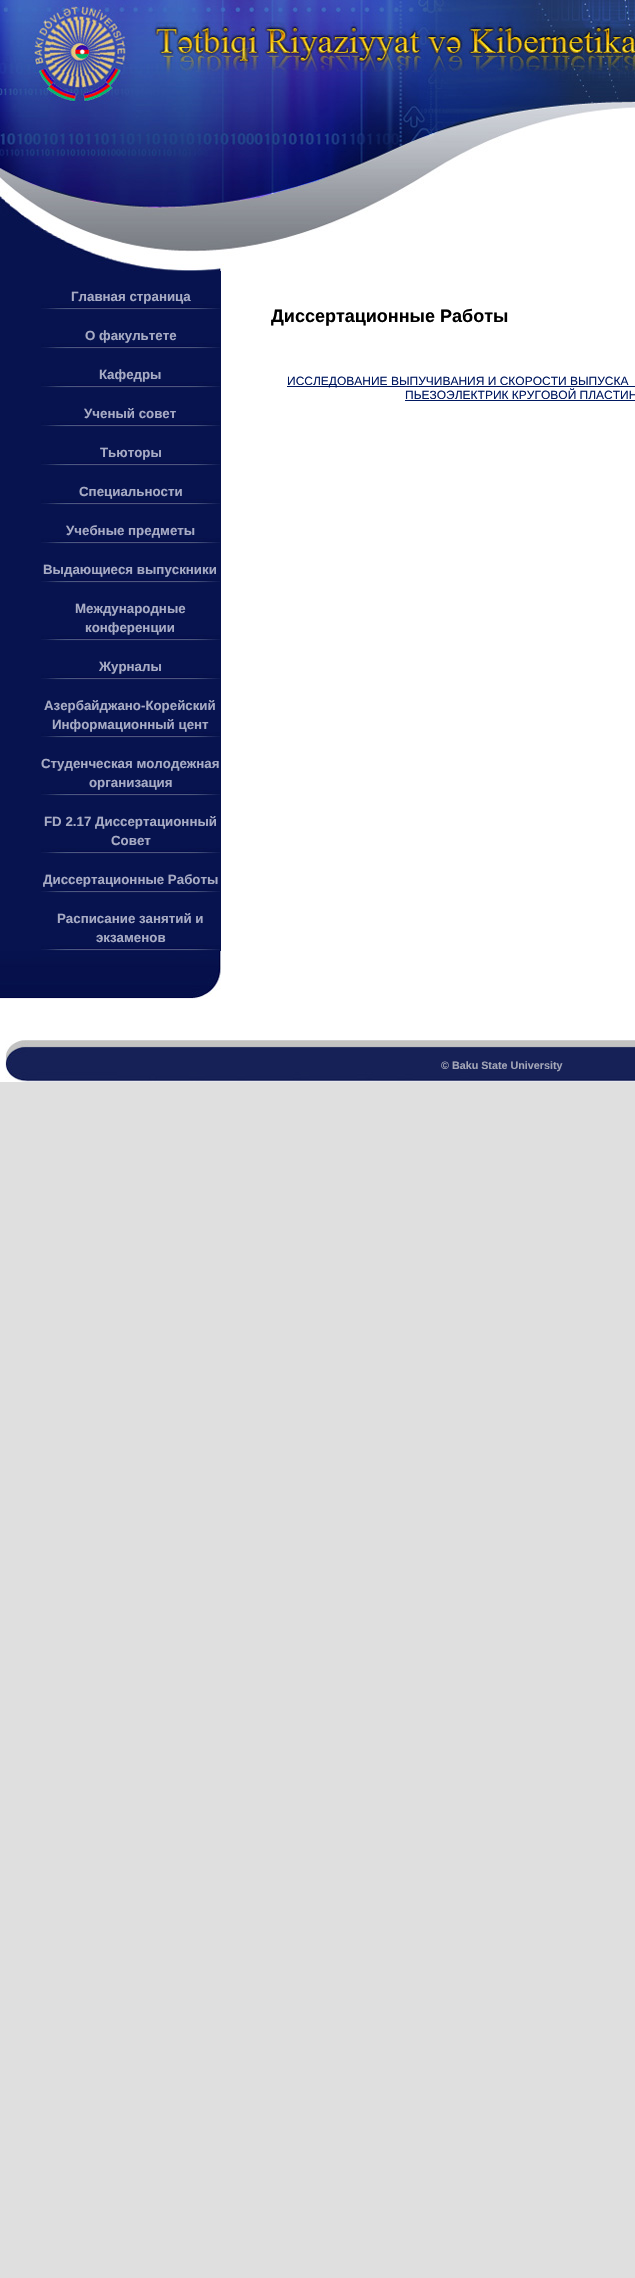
static SkFont makeFont(const char* family, int weight, float size, bool italic = false) {
  SkFontStyle style(weight, SkFontStyle::kNormal_Width,
    italic ? SkFontStyle::kItalic_Slant : SkFontStyle::kUpright_Slant);
  SkFont result(fontMgr->matchFamilyStyle(family, style), size);
  result.setSubpixel(true);
  return result;
}

static void text(SkCanvas* c, const char* s, float x, float y, const SkFont& font, SkColor color) {
  SkPaint ink(SkColor4f::FromColor(color));
  ink.setAntiAlias(true);
  c->drawString(s, x, y, font, ink);
}

static void box(SkCanvas* c, float l, float t, float r, float b, SkColor color) {
  SkPaint ink(SkColor4f::FromColor(color));
  ink.setAntiAlias(true);
  c->drawRect(SkRect::MakeLTRB(l, t, r, b), ink);
}

static void picture(SkCanvas* c, const char* path, float l, float t, float r, float b) {
  auto image = SkImages::DeferredFromEncodedData(SkData::MakeFromFileName(path));
  c->drawImageRect(image, SkRect::MakeLTRB(l, t, r, b), SkSamplingOptions());
}

void draw(SkCanvas* c) {
  SkPaint paint;
  paint.setAntiAlias(true);
  c->clear(0xffdfdfdf);
  box(c, 0, 136, 635, 1082, 0xffffffff);
  picture(c, "img_01.png", 0, 0, 502, 271);
  picture(c, "img_02.png", 33, 5, 127, 102);
  picture(c, "img_03.png", 502, 0, 635, 136);
  box(c, 0, 271, 221, 951, 0xff07134f);
  picture(c, "img_04.png", 0, 951, 221, 999);
  picture(c, "img_05.png", 41, 304, 220, 310);
  SkFont face1 = makeFont("Liberation Sans", 700, 13.3f);
  text(c, "Главная страница", 71, 301, face1, 0xffa7abc4);
  picture(c, "img_05.png", 41, 343, 220, 349);
  text(c, "О факультете", 85, 340, face1, 0xffa7abc4);
  picture(c, "img_05.png", 41, 382, 220, 388);
  text(c, "Кафедры", 99, 379, face1, 0xffa7abc4);
  picture(c, "img_05.png", 41, 421, 220, 427);
  text(c, "Ученый совет", 84, 418, face1, 0xffa7abc4);
  picture(c, "img_05.png", 41, 460, 220, 466);
  text(c, "Тьюторы", 100, 457, face1, 0xffa7abc4);
  picture(c, "img_05.png", 41, 499, 220, 505);
  text(c, "Специальности", 79, 496, face1, 0xffa7abc4);
  picture(c, "img_05.png", 41, 538, 220, 544);
  text(c, "Учебные предметы", 66, 535, face1, 0xffa7abc4);
  picture(c, "img_05.png", 41, 577, 220, 583);
  text(c, "Выдающиеся выпускники", 43, 574, face1, 0xffa7abc4);
  picture(c, "img_05.png", 41, 635, 220, 641);
  text(c, "Международные", 75, 613, face1, 0xffa7abc4);
  text(c, "конференции", 85, 632, face1, 0xffa7abc4);
  picture(c, "img_05.png", 41, 674, 220, 680);
  text(c, "Журналы", 99, 671, face1, 0xffa7abc4);
  picture(c, "img_05.png", 41, 732, 220, 738);
  text(c, "Азербайджано-Корейский", 44, 710, face1, 0xffa7abc4);
  text(c, "Информационный цент", 52, 729, face1, 0xffa7abc4);
  picture(c, "img_05.png", 41, 790, 220, 796);
  text(c, "Студенческая молодежная", 41, 768, face1, 0xffa7abc4);
  text(c, "организация", 89, 787, face1, 0xffa7abc4);
  picture(c, "img_05.png", 41, 848, 220, 854);
  text(c, "FD 2.17 Диссертационный", 44, 826, face1, 0xffa7abc4);
  text(c, "Cовет", 111, 845, face1, 0xffa7abc4);
  picture(c, "img_05.png", 41, 887, 220, 893);
  text(c, "Диссертационные Работы", 43, 884, face1, 0xffa7abc4);
  picture(c, "img_05.png", 41, 945, 220, 951);
  text(c, "Расписание занятий и", 57, 923, face1, 0xffa7abc4);
  text(c, "экзаменов", 96, 942, face1, 0xffa7abc4);
  SkFont face2 = makeFont("Liberation Sans", 700, 18);
  text(c, "Диссертационные Работы", 271, 322, face2, 0xff000000);
  box(c, 287, 386, 635, 387, 0xff011961);
  SkFont face3 = makeFont("Liberation Sans", 400, 12);
  text(c, "ИССЛЕДОВАНИЕ ВЫПУЧИВАНИЯ И СКОРОСТИ ВЫПУСКА", 287, 385, face3, 0xff011961);
  text(c, "ПЬЕЗОЭЛЕКТРИК КРУГОВОЙ ПЛАСТИН", 405, 399, face3, 0xff011961);
  box(c, 405, 400, 635, 401, 0xff011961);
  picture(c, "img_06.png", 5, 1040, 635, 1082);
  SkFont face4 = makeFont("Liberation Sans", 700, 10.75f);
  text(c, "© Baku State University", 441, 1069, face4, 0xffa3a6b7);
}
